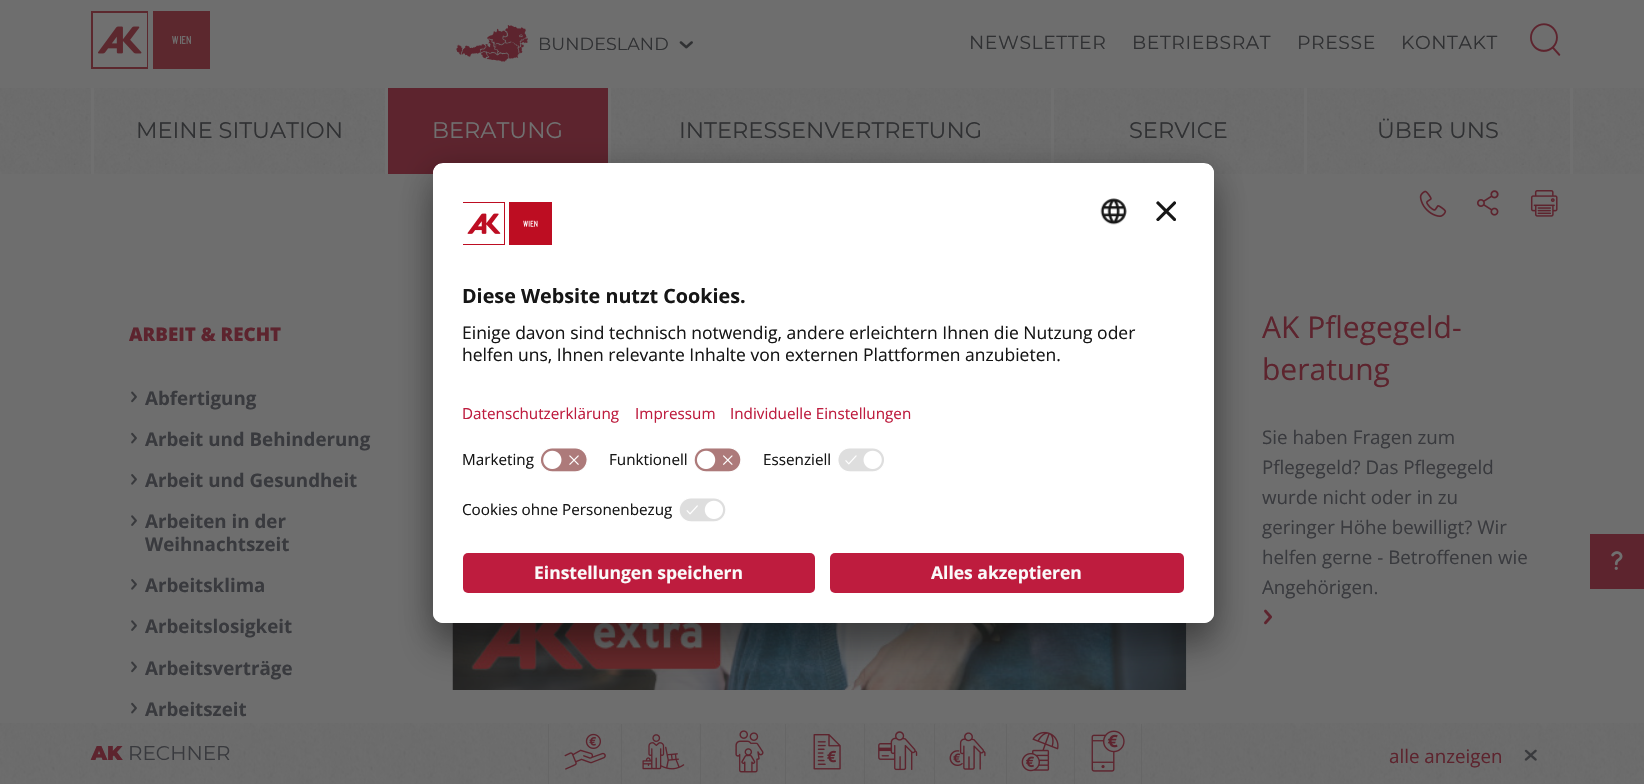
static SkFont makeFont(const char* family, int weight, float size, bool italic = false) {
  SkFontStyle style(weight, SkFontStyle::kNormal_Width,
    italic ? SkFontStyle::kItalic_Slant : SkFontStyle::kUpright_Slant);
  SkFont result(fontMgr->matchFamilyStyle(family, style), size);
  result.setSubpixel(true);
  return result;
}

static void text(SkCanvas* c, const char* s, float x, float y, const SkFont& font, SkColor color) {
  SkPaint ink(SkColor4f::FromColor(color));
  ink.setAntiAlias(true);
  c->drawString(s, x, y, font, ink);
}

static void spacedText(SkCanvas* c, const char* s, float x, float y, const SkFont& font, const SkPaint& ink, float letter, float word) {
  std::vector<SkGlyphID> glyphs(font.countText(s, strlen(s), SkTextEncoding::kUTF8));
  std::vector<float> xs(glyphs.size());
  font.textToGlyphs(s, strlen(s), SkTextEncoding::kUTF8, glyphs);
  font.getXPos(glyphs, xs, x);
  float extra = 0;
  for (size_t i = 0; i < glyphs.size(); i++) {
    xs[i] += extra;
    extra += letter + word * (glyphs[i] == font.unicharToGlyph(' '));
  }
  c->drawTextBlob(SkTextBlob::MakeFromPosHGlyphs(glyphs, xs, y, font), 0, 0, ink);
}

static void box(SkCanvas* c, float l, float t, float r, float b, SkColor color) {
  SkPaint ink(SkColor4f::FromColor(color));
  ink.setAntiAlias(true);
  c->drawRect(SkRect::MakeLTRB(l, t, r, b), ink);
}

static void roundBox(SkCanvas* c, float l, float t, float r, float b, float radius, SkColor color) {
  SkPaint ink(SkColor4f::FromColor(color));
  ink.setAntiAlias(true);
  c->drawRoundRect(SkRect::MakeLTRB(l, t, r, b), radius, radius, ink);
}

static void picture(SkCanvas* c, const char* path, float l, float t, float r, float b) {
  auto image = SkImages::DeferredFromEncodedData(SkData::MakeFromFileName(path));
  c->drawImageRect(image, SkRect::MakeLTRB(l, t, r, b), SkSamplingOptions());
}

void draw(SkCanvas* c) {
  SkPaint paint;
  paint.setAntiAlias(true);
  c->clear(0xff6e6e6e);
  picture(c, "img_01.png", 91, 11, 210, 69);
  picture(c, "img_02.png", 456, 25, 528, 62);
  SkFont face1 = makeFont("Montserrat", 400, 17.5f);
  paint.setColor(0xff303133);
  spacedText(c, "BUNDESLAND", 538, 50, face1, paint, 0.1f, 0);
  picture(c, "img_03.png", 679, 41, 693, 49);
  SkFont face2 = makeFont("Montserrat", 400, 18.75f);
  spacedText(c, "NEWSLETTER", 969, 49, face2, paint, 0.6f, 0);
  spacedText(c, "BETRIEBSRAT", 1132, 49, face2, paint, 0.6f, 0);
  spacedText(c, "PRESSE", 1297, 49, face2, paint, 0.6f, 0);
  spacedText(c, "KONTAKT", 1401, 49, face2, paint, 0.6f, 0);
  picture(c, "img_04.png", 1530, 23, 1561, 56);
  picture(c, "img_05.png", 0, 88, 1644, 174);
  picture(c, "img_06.png", 94, 88, 1570, 174);
  box(c, 385, 88, 388, 174, 0xff707070);
  box(c, 91, 88, 94, 174, 0xff707070);
  SkFont face3 = makeFont("Montserrat", 400, 22.5f);
  text(c, "MEINE SITUATION", 136, 138, face3, 0xff303133);
  box(c, 608, 88, 611, 163, 0xff707070);
  box(c, 388, 88, 608, 174, 0xff5d242e);
  text(c, "BERATUNG", 432, 138, face3, 0xff707070);
  box(c, 1051, 88, 1054, 163, 0xff707070);
  text(c, "INTERESSENVERTRETUNG", 679, 138, face3, 0xff303133);
  box(c, 1304, 88, 1307, 174, 0xff707070);
  text(c, "SERVICE", 1129, 138, face3, 0xff303133);
  box(c, 1570, 88, 1573, 174, 0xff707070);
  text(c, "ÜBER UNS", 1377, 138, face3, 0xff303133);
  picture(c, "img_07.png", 1419, 190, 1447, 217);
  picture(c, "img_08.png", 1477, 190, 1499, 216);
  picture(c, "img_09.png", 1530, 190, 1558, 217);
  picture(c, "img_21.png", 1264, 609, 1272, 625);
  picture(c, "img_22.png", 452, 623, 1187, 690);
  paint.setColor(0x4d000000);
  paint.setMaskFilter(SkMaskFilter::MakeBlur(kNormal_SkBlurStyle, 17.5f));
  c->drawRoundRect(SkRect::MakeLTRB(433, 188, 1214, 648), 10, 10, paint);
  paint.setMaskFilter(nullptr);
  paint.setColor(0x38000000);
  paint.setMaskFilter(SkMaskFilter::MakeBlur(kNormal_SkBlurStyle, 16));
  c->drawRoundRect(SkRect::MakeLTRB(433, 169, 1214, 629), 10, 10, paint);
  paint.setMaskFilter(nullptr);
  roundBox(c, 433, 163, 1214, 623, 10, 0xffffffff);
  c->save();
  c->clipPath(SkPathBuilder().moveTo(443, 163).lineTo(1204, 163).cubicTo(1209.5f, 163, 1214, 167.5f, 1214, 173).lineTo(1214, 613).cubicTo(1214, 618.5f, 1209.5f, 623, 1204, 623).lineTo(443, 623).cubicTo(437.5f, 623, 433, 618.5f, 433, 613).lineTo(433, 173).cubicTo(433, 167.5f, 437.5f, 163, 443, 163).close().detach(), true);
  c->clipPath(SkPathBuilder().moveTo(443, 163).lineTo(1204, 163).cubicTo(1209.5f, 163, 1214, 167.5f, 1214, 173).lineTo(1214, 543).lineTo(433, 543).lineTo(433, 173).cubicTo(433, 167.5f, 437.5f, 163, 443, 163).close().detach(), true);
  box(c, 433, 164, 1214, 543, 0xffffffff);
  box(c, 433, 164, 1214, 443, 0xffffffff);
  c->restore();
  picture(c, "img_10.png", 463, 202, 552, 245);
  picture(c, "img_11.png", 1100, 198, 1127, 225);
  picture(c, "img_12.png", 1156, 201, 1176, 221);
  SkFont face4 = makeFont("Open Sans", 700, 19.75f);
  text(c, "Diese Website nutzt Cookies.", 462, 303, face4, 0xff161616);
  SkFont face5 = makeFont("Open Sans", 400, 17.5f);
  text(c, "Einige davon sind technisch notwendig, andere erleichtern Ihnen die Nutzung oder", 462, 339, face5, 0xff161616);
  text(c, "helfen uns, Ihnen relevante Inhalte von externen Plattformen anzubieten.", 462, 361, face5, 0xff161616);
  SkFont face6 = makeFont("Open Sans", 400, 15.25f);
  text(c, "Datenschutzerklärung", 462, 419, face6, 0xffbe1c3e);
  text(c, "Impressum", 635, 419, face6, 0xffbe1c3e);
  text(c, "Individuelle Einstellungen", 730, 419, face6, 0xffbe1c3e);
  text(c, "Marketing", 462, 465, face6, 0xff161616);
  picture(c, "img_13.png", 540, 448, 588, 472);
  text(c, "Funktionell", 609, 465, face6, 0xff161616);
  picture(c, "img_14.png", 694, 448, 741, 472);
  text(c, "Essenziell", 763, 465, face6, 0xff161616);
  picture(c, "img_15.png", 838, 448, 884, 472);
  text(c, "Cookies ohne Personenbezug", 462, 515, face6, 0xff161616);
  picture(c, "img_16.png", 679, 498, 726, 522);
  paint.setColor(0xffffffff);
  c->drawPath(SkPathBuilder().moveTo(433, 543).lineTo(1214, 543).lineTo(1214, 613).cubicTo(1214, 618.5f, 1209.5f, 623, 1204, 623).lineTo(443, 623).cubicTo(437.5f, 623, 433, 618.5f, 433, 613).close().detach(), paint);
  roundBox(c, 463, 553, 815, 593, 5, 0xffbe1c3e);
  SkFont face7 = makeFont("Open Sans", 700, 17.5f);
  text(c, "Einstellungen speichern", 534, 579, face7, 0xfffafafa);
  roundBox(c, 830, 553, 1184, 593, 5, 0xffbe1c3e);
  text(c, "Alles akzeptieren", 931, 579, face7, 0xfffafafa);
  SkFont face8 = makeFont("Open Sans", 800, 18.75f);
  text(c, "ARBEIT & RECHT", 129, 341, face8, 0xff5d242e);
  picture(c, "img_17.png", 131, 391, 137, 403);
  SkFont face9 = makeFont("Open Sans", 700, 18.75f);
  text(c, "Abfertigung", 145, 405, face9, 0xff393a3e);
  picture(c, "img_18.png", 131, 432, 137, 444);
  text(c, "Arbeit und Behinderung", 145, 446, face9, 0xff393a3e);
  picture(c, "img_19.png", 131, 474, 137, 485);
  text(c, "Arbeit und Gesundheit", 145, 487, face9, 0xff393a3e);
  picture(c, "img_20.png", 131, 515, 137, 526);
  text(c, "Arbeiten in der", 145, 528, face9, 0xff393a3e);
  text(c, "Weihnachtszeit", 145, 551, face9, 0xff393a3e);
  picture(c, "img_19.png", 131, 579, 137, 590);
  text(c, "Arbeitsklima", 145, 592, face9, 0xff393a3e);
  picture(c, "img_20.png", 131, 620, 137, 631);
  text(c, "Arbeitslosigkeit", 145, 633, face9, 0xff393a3e);
  picture(c, "img_17.png", 131, 661, 137, 673);
  text(c, "Arbeitsverträge", 145, 675, face9, 0xff393a3e);
  picture(c, "img_18.png", 131, 702, 137, 714);
  text(c, "Arbeitszeit", 145, 716, face9, 0xff393a3e);
  SkFont face10 = makeFont("Open Sans", 400, 30);
  text(c, "AK Pflegegeld-", 1262, 338, face10, 0xff5d242e);
  text(c, "beratung", 1262, 380, face10, 0xff5d242e);
  SkFont face11 = makeFont("Open Sans", 400, 18.75f);
  text(c, "Sie haben Fragen zum", 1262, 444, face11, 0xff393a3e);
  text(c, "Pflegegeld? Das Pflegegeld", 1262, 474, face11, 0xff393a3e);
  text(c, "wurde nicht oder in zu", 1262, 504, face11, 0xff393a3e);
  text(c, "geringer Höhe bewilligt? Wir", 1262, 534, face11, 0xff393a3e);
  text(c, "helfen gerne - Betroffenen wie", 1262, 564, face11, 0xff393a3e);
  text(c, "Angehörigen.", 1262, 594, face11, 0xff393a3e);
  box(c, 1590, 534, 1644, 589, 0xff5d242e);
  picture(c, "img_23.png", 1611, 551, 1623, 570);
  picture(c, "img_24.png", 0, 723, 1644, 784);
  SkFont face12 = makeFont("Montserrat", 900, 20);
  text(c, "AK", 91, 760, face12, 0xff5d242e);
  SkFont face13 = makeFont("Montserrat", 400, 20);
  text(c, "RECHNER", 128, 760, face13, 0xff393a3e);
  box(c, 621, 724, 622, 784, 0xff666666);
  box(c, 548, 724, 549, 784, 0xff666666);
  picture(c, "img_25.png", 564, 733, 606, 770);
  box(c, 700, 724, 701, 784, 0xff666666);
  picture(c, "img_26.png", 642, 734, 685, 770);
  box(c, 785, 724, 786, 784, 0xff666666);
  picture(c, "img_27.png", 735, 730, 764, 773);
  box(c, 864, 724, 865, 784, 0xff666666);
  picture(c, "img_28.png", 813, 734, 841, 770);
  box(c, 934, 724, 935, 784, 0xff666666);
  picture(c, "img_29.png", 878, 731, 918, 771);
  box(c, 1006, 724, 1007, 784, 0xff666666);
  picture(c, "img_30.png", 949, 732, 986, 770);
  box(c, 1074, 724, 1075, 784, 0xff666666);
  picture(c, "img_31.png", 1021, 731, 1059, 772);
  box(c, 1141, 724, 1142, 784, 0xff666666);
  picture(c, "img_32.png", 1091, 730, 1125, 772);
  text(c, "alle anzeigen", 1389, 763, face11, 0xff5d242e);
  picture(c, "img_33.png", 1524, 749, 1537, 761);
}
